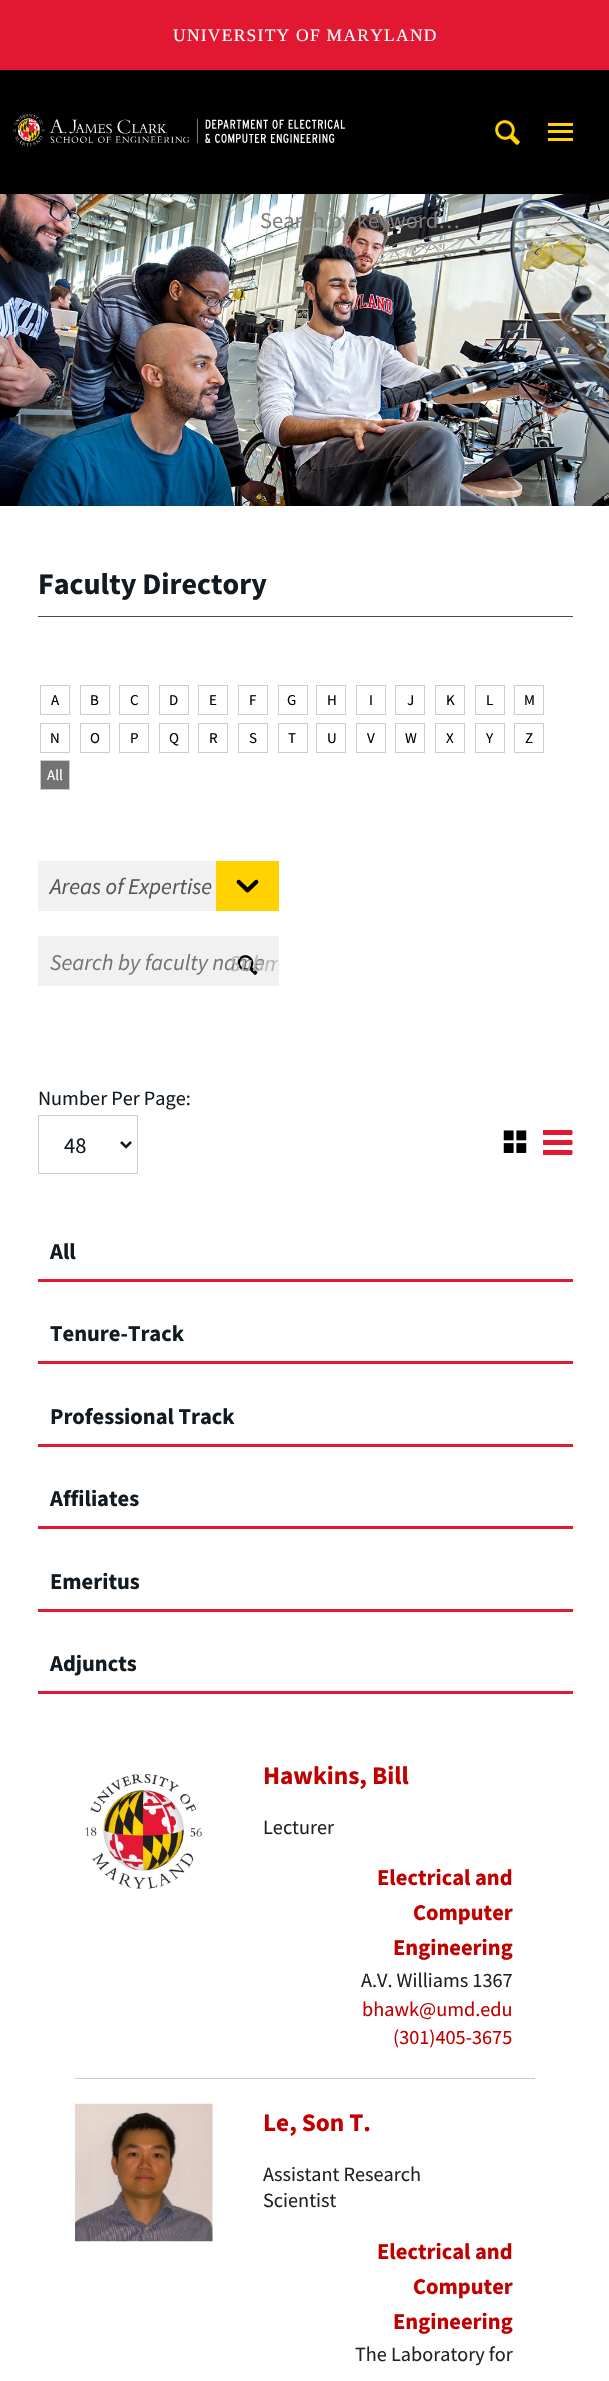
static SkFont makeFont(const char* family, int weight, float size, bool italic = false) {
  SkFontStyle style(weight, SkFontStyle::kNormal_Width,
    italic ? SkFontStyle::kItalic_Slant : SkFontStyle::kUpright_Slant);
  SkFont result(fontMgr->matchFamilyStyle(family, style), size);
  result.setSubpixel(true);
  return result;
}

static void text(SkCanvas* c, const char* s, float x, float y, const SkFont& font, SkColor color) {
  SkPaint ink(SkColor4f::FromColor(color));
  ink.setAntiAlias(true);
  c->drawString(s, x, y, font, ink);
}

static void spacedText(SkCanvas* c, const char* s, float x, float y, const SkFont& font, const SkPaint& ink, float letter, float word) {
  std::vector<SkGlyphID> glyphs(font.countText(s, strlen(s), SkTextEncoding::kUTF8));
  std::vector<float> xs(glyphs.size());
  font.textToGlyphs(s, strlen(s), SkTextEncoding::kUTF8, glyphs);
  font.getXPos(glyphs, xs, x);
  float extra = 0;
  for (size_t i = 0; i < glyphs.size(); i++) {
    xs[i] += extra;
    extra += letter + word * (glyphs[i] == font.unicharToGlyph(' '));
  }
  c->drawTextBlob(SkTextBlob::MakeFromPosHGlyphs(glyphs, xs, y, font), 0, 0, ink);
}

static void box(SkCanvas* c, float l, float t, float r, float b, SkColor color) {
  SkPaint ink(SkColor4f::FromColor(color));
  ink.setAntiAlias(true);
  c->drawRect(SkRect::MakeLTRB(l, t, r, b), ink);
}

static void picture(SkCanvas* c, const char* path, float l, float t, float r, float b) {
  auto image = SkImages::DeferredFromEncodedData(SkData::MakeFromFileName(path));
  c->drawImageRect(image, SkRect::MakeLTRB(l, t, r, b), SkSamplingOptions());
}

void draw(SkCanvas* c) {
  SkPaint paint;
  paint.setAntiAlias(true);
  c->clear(0xffffffff);
  box(c, 0, 0, 609, 70, 0xffe21833);
  SkFont face1 = makeFont("Liberation Serif", 400, 17.5f);
  paint.setColor(0xffffffff);
  spacedText(c, "UNIVERSITY OF MARYLAND", 173, 41, face1, paint, 1.25f, 0);
  picture(c, "img_01.png", 0, 194, 609, 506);
  box(c, 0, 70, 609, 194, 0xff000000);
  picture(c, "img_02.png", 13, 114, 345, 147);
  picture(c, "img_03.png", 495, 120, 520, 145);
  box(c, 548, 123, 573, 126, 0xffffd200);
  box(c, 548, 138, 573, 141, 0xffffd200);
  box(c, 548, 130, 573, 133, 0xffffd200);
  SkFont face2 = makeFont("Source Sans Pro", 400, 22.5f);
  text(c, "Search by keyword…", 260, 228, face2, 0xff7f7f7e);
  box(c, 38, 616, 573, 617, 0xff434a4f);
  SkFont face3 = makeFont("Source Sans Pro", 700, 30);
  text(c, "Faculty Directory", 38, 594, face3, 0xff121b21);
  paint.setStyle(SkPaint::kStroke_Style);
  paint.setStrokeWidth(1);
  paint.setColor(0xffcccccc);
  c->drawRect(SkRect::MakeLTRB(40.5f, 685.5f, 69.5f, 714.5f), paint);
  SkFont face4 = makeFont("Source Sans Pro", 400, 15);
  text(c, "A", 51, 705, face4, 0xff000000);
  c->drawRect(SkRect::MakeLTRB(80.5f, 685.5f, 109.5f, 714.5f), paint);
  text(c, "B", 90, 705, face4, 0xff000000);
  c->drawRect(SkRect::MakeLTRB(119.5f, 685.5f, 148.5f, 714.5f), paint);
  text(c, "C", 130, 705, face4, 0xff000000);
  c->drawRect(SkRect::MakeLTRB(159.5f, 685.5f, 188.5f, 714.5f), paint);
  text(c, "D", 169, 705, face4, 0xff000000);
  c->drawRect(SkRect::MakeLTRB(198.5f, 685.5f, 227.5f, 714.5f), paint);
  text(c, "E", 209, 705, face4, 0xff000000);
  c->drawRect(SkRect::MakeLTRB(238.5f, 685.5f, 267.5f, 714.5f), paint);
  text(c, "F", 249, 705, face4, 0xff000000);
  c->drawRect(SkRect::MakeLTRB(278.5f, 685.5f, 307.5f, 714.5f), paint);
  text(c, "G", 287, 705, face4, 0xff000000);
  c->drawRect(SkRect::MakeLTRB(316.5f, 685.5f, 345.5f, 714.5f), paint);
  text(c, "H", 327, 705, face4, 0xff000000);
  c->drawRect(SkRect::MakeLTRB(356.5f, 685.5f, 385.5f, 714.5f), paint);
  text(c, "I", 369, 705, face4, 0xff000000);
  c->drawRect(SkRect::MakeLTRB(395.5f, 685.5f, 424.5f, 714.5f), paint);
  text(c, "J", 407, 705, face4, 0xff000000);
  c->drawRect(SkRect::MakeLTRB(435.5f, 685.5f, 464.5f, 714.5f), paint);
  text(c, "K", 446, 705, face4, 0xff000000);
  c->drawRect(SkRect::MakeLTRB(475.5f, 685.5f, 504.5f, 714.5f), paint);
  text(c, "L", 486, 705, face4, 0xff000000);
  c->drawRect(SkRect::MakeLTRB(514.5f, 685.5f, 543.5f, 714.5f), paint);
  text(c, "M", 524, 705, face4, 0xff000000);
  c->drawRect(SkRect::MakeLTRB(40.5f, 723.5f, 69.5f, 752.5f), paint);
  text(c, "N", 50, 743, face4, 0xff000000);
  c->drawRect(SkRect::MakeLTRB(80.5f, 723.5f, 109.5f, 752.5f), paint);
  text(c, "O", 90, 743, face4, 0xff000000);
  c->drawRect(SkRect::MakeLTRB(119.5f, 723.5f, 148.5f, 752.5f), paint);
  text(c, "P", 130, 743, face4, 0xff000000);
  c->drawRect(SkRect::MakeLTRB(159.5f, 723.5f, 188.5f, 752.5f), paint);
  text(c, "Q", 169, 743, face4, 0xff000000);
  c->drawRect(SkRect::MakeLTRB(198.5f, 723.5f, 227.5f, 752.5f), paint);
  text(c, "R", 209, 743, face4, 0xff000000);
  c->drawRect(SkRect::MakeLTRB(238.5f, 723.5f, 267.5f, 752.5f), paint);
  text(c, "S", 249, 743, face4, 0xff000000);
  c->drawRect(SkRect::MakeLTRB(278.5f, 723.5f, 307.5f, 752.5f), paint);
  text(c, "T", 288, 743, face4, 0xff000000);
  c->drawRect(SkRect::MakeLTRB(316.5f, 723.5f, 345.5f, 752.5f), paint);
  text(c, "U", 327, 743, face4, 0xff000000);
  c->drawRect(SkRect::MakeLTRB(356.5f, 723.5f, 385.5f, 752.5f), paint);
  text(c, "V", 367, 743, face4, 0xff000000);
  c->drawRect(SkRect::MakeLTRB(395.5f, 723.5f, 424.5f, 752.5f), paint);
  text(c, "W", 405, 743, face4, 0xff000000);
  c->drawRect(SkRect::MakeLTRB(435.5f, 723.5f, 464.5f, 752.5f), paint);
  text(c, "X", 446, 743, face4, 0xff000000);
  c->drawRect(SkRect::MakeLTRB(475.5f, 723.5f, 504.5f, 752.5f), paint);
  text(c, "Y", 486, 743, face4, 0xff000000);
  c->drawRect(SkRect::MakeLTRB(514.5f, 723.5f, 543.5f, 752.5f), paint);
  text(c, "Z", 525, 743, face4, 0xff000000);
  paint.setStyle(SkPaint::kFill_Style);
  paint.setColor(0xff737373);
  c->drawRect(SkRect::MakeLTRB(40.5f, 760.5f, 69.5f, 789.5f), paint);
  paint.setStyle(SkPaint::kStroke_Style);
  paint.setColor(0xffcccccc);
  c->drawRect(SkRect::MakeLTRB(40.5f, 760.5f, 69.5f, 789.5f), paint);
  text(c, "All", 47, 780, face4, 0xffffffff);
  box(c, 38, 861, 216, 911, 0xfff1f1f1);
  SkFont face5 = makeFont("Source Sans Pro", 400, 22.5f, true);
  text(c, "Areas of Expertise", 50, 894, face5, 0xff555555);
  box(c, 216, 861, 279, 911, 0xffffd200);
  picture(c, "img_04.png", 236, 879, 259, 893);
  box(c, 38, 936, 279, 986, 0xfff1f1f1);
  text(c, "Search by faculty name", 50, 970, face5, 0xff757575);
  picture(c, "img_05.png", 237, 955, 258, 975);
  c->save();
  c->clipRect(SkRect::MakeLTRB(218, 938, 278, 985));
  text(c, "Subm", 229, 971, face5, 0xffb7b7b7);
  c->restore();
  SkFont face6 = makeFont("Source Sans Pro", 400, 20.25f);
  text(c, "Number Per Page:", 38, 1105, face6, 0xff121b21);
  c->drawRect(SkRect::MakeLTRB(38.5f, 1115.5f, 137.5f, 1173.5f), paint);
  paint.setStrokeWidth(2.5f);
  paint.setColor(0xff121b21);
  c->drawPath(SkPathBuilder().moveTo(121, 1142).lineTo(126, 1147).lineTo(131, 1142).detach(), paint);
  text(c, "48", 64, 1153, face2, 0xff121b21);
  picture(c, "img_06.png", 503, 1130, 527, 1153);
  picture(c, "img_07.png", 543, 1130, 573, 1155);
  box(c, 38, 1279, 573, 1282, 0xffe31933);
  SkFont face7 = makeFont("Source Sans Pro", 700, 22.5f);
  text(c, "All", 50, 1259, face7, 0xff121b21);
  box(c, 38, 1361, 573, 1364, 0xffe31933);
  text(c, "Tenure-Track", 50, 1341, face7, 0xff121b21);
  box(c, 38, 1444, 573, 1447, 0xffe31933);
  text(c, "Professional Track", 50, 1424, face7, 0xff121b21);
  box(c, 38, 1526, 573, 1529, 0xffe31933);
  text(c, "Affiliates", 50, 1506, face7, 0xff121b21);
  box(c, 38, 1609, 573, 1612, 0xffe31933);
  text(c, "Emeritus", 50, 1589, face7, 0xff121b21);
  box(c, 38, 1691, 573, 1694, 0xffe31933);
  text(c, "Adjuncts", 50, 1671, face7, 0xff121b21);
  box(c, 75, 2078, 535, 2079, 0xffcccccc);
  picture(c, "img_08.png", 85, 1774, 202, 1889);
  SkFont face8 = makeFont("Source Sans Pro", 700, 25.25f);
  text(c, "Hawkins, Bill", 263, 1784, face8, 0xffc20000);
  text(c, "Lecturer", 263, 1834, face6, 0xff222222);
  text(c, "Electrical and", 377, 1885, face7, 0xffc20000);
  text(c, "Computer", 413, 1920, face7, 0xffc20000);
  text(c, "Engineering", 393, 1955, face7, 0xffc20000);
  text(c, "A.V. Williams 1367", 361, 1987, face6, 0xff222222);
  text(c, "bhawk@umd.edu", 362, 2016, face6, 0xffc20000);
  text(c, "(301)405-3675", 393, 2044, face6, 0xffc20000);
  picture(c, "img_09.png", 75, 2103, 213, 2242);
  text(c, "Le, Son T.", 263, 2131, face8, 0xffc20000);
  text(c, "Assistant Research", 263, 2181, face6, 0xff222222);
  text(c, "Scientist", 263, 2207, face6, 0xff222222);
  text(c, "Electrical and", 377, 2259, face7, 0xffc20000);
  text(c, "Computer", 413, 2294, face7, 0xffc20000);
  text(c, "Engineering", 393, 2329, face7, 0xffc20000);
  text(c, "The Laboratory for", 355, 2361, face6, 0xff222222);
}
